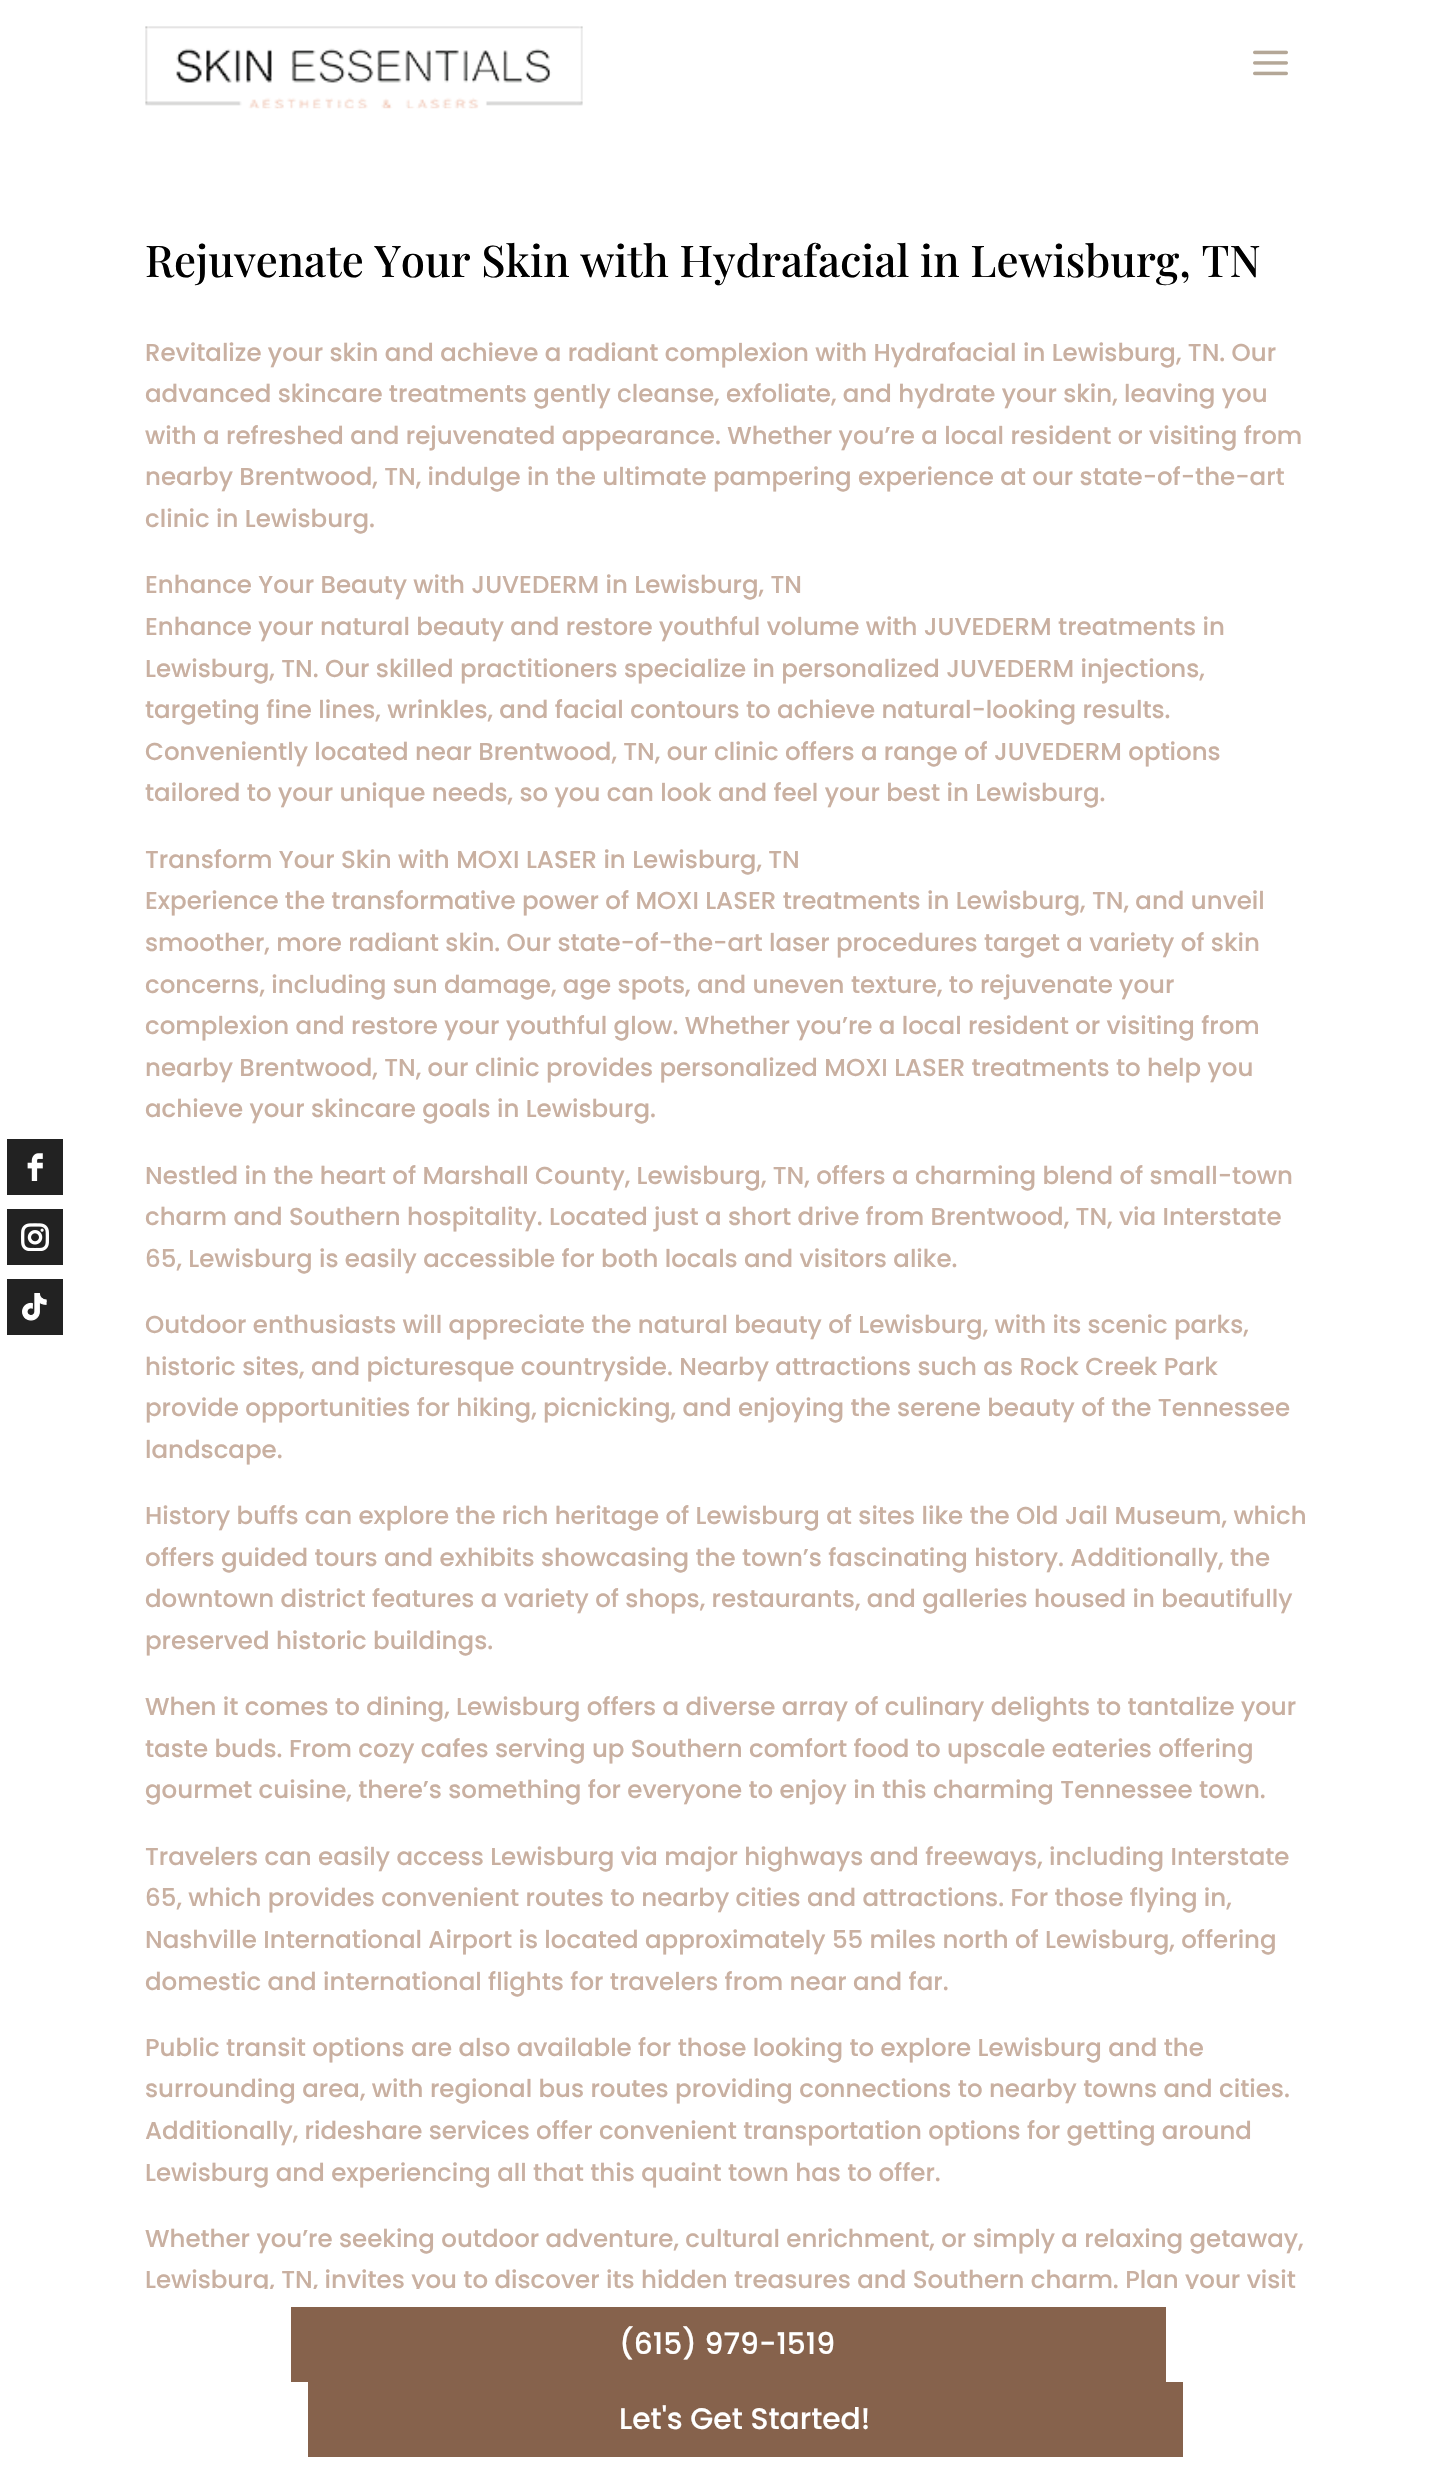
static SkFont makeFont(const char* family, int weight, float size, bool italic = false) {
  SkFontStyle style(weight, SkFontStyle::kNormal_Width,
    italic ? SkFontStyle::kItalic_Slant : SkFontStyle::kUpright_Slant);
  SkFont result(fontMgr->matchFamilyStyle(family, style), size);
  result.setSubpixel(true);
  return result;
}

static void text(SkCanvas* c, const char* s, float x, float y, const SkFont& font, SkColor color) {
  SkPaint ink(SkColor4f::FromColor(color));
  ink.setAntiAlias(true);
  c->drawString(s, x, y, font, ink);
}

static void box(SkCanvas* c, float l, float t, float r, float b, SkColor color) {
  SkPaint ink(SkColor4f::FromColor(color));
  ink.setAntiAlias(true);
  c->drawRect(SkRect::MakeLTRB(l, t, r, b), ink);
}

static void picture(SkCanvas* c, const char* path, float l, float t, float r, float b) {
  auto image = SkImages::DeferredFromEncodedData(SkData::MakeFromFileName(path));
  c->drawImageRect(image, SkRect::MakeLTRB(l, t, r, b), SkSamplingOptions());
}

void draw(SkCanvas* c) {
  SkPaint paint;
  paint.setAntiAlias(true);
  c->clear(0xffffffff);
  box(c, 7, 1139, 63, 1195, 0xff222222);
  picture(c, "img_01.png", 27, 1153, 43, 1181);
  box(c, 7, 1209, 63, 1265, 0xff222222);
  picture(c, "img_02.png", 21, 1223, 49, 1251);
  box(c, 7, 1279, 63, 1335, 0xff222222);
  picture(c, "img_03.png", 22, 1293, 47, 1321);
  picture(c, "img_04.png", 145, 26, 583, 109);
  picture(c, "img_05.png", 1253, 50, 1288, 76);
  SkFont face1 = makeFont("Playfair Display", 500, 43.75f);
  text(c, "Rejuvenate Your Skin with Hydrafacial in Lewisburg, TN", 145, 277, face1, 0xff000000);
  SkFont face2 = makeFont("Poppins", 500, 24.5f);
  text(c, "Revitalize your skin and achieve a radiant complexion with Hydrafacial in Lewisburg, TN. Our", 145, 361, face2, 0xffc9b0a1);
  text(c, "advanced skincare treatments gently cleanse, exfoliate, and hydrate your skin, leaving you", 145, 402, face2, 0xffc9b0a1);
  text(c, "with a refreshed and rejuvenated appearance. Whether you’re a local resident or visiting from", 145, 444, face2, 0xffc9b0a1);
  text(c, "nearby Brentwood, TN, indulge in the ultimate pampering experience at our state-of-the-art", 145, 485, face2, 0xffc9b0a1);
  text(c, "clinic in Lewisburg.", 145, 527, face2, 0xffc9b0a1);
  text(c, "Enhance Your Beauty with JUVEDERM in Lewisburg, TN", 145, 593, face2, 0xffc9b0a1);
  text(c, "Enhance your natural beauty and restore youthful volume with JUVEDERM treatments in", 145, 635, face2, 0xffc9b0a1);
  text(c, "Lewisburg, TN. Our skilled practitioners specialize in personalized JUVEDERM injections,", 145, 677, face2, 0xffc9b0a1);
  text(c, "targeting fine lines, wrinkles, and facial contours to achieve natural-looking results.", 145, 718, face2, 0xffc9b0a1);
  text(c, "Conveniently located near Brentwood, TN, our clinic offers a range of JUVEDERM options", 145, 760, face2, 0xffc9b0a1);
  text(c, "tailored to your unique needs, so you can look and feel your best in Lewisburg.", 145, 801, face2, 0xffc9b0a1);
  text(c, "Transform Your Skin with MOXI LASER in Lewisburg, TN", 145, 868, face2, 0xffc9b0a1);
  text(c, "Experience the transformative power of MOXI LASER treatments in Lewisburg, TN, and unveil", 145, 909, face2, 0xffc9b0a1);
  text(c, "smoother, more radiant skin. Our state-of-the-art laser procedures target a variety of skin", 145, 951, face2, 0xffc9b0a1);
  text(c, "concerns, including sun damage, age spots, and uneven texture, to rejuvenate your", 145, 993, face2, 0xffc9b0a1);
  text(c, "complexion and restore your youthful glow. Whether you’re a local resident or visiting from", 145, 1034, face2, 0xffc9b0a1);
  text(c, "nearby Brentwood, TN, our clinic provides personalized MOXI LASER treatments to help you", 145, 1076, face2, 0xffc9b0a1);
  text(c, "achieve your skincare goals in Lewisburg.", 145, 1117, face2, 0xffc9b0a1);
  text(c, "Nestled in the heart of Marshall County, Lewisburg, TN, offers a charming blend of small-town", 145, 1184, face2, 0xffc9b0a1);
  text(c, "charm and Southern hospitality. Located just a short drive from Brentwood, TN, via Interstate", 145, 1225, face2, 0xffc9b0a1);
  text(c, "65, Lewisburg is easily accessible for both locals and visitors alike.", 145, 1267, face2, 0xffc9b0a1);
  text(c, "Outdoor enthusiasts will appreciate the natural beauty of Lewisburg, with its scenic parks,", 145, 1333, face2, 0xffc9b0a1);
  text(c, "historic sites, and picturesque countryside. Nearby attractions such as Rock Creek Park", 145, 1375, face2, 0xffc9b0a1);
  text(c, "provide opportunities for hiking, picnicking, and enjoying the serene beauty of the Tennessee", 145, 1416, face2, 0xffc9b0a1);
  text(c, "landscape.", 145, 1458, face2, 0xffc9b0a1);
  text(c, "History buffs can explore the rich heritage of Lewisburg at sites like the Old Jail Museum, which", 145, 1524, face2, 0xffc9b0a1);
  text(c, "offers guided tours and exhibits showcasing the town’s fascinating history. Additionally, the", 145, 1566, face2, 0xffc9b0a1);
  text(c, "downtown district features a variety of shops, restaurants, and galleries housed in beautifully", 145, 1607, face2, 0xffc9b0a1);
  text(c, "preserved historic buildings.", 145, 1649, face2, 0xffc9b0a1);
  text(c, "When it comes to dining, Lewisburg offers a diverse array of culinary delights to tantalize your", 145, 1715, face2, 0xffc9b0a1);
  text(c, "taste buds. From cozy cafes serving up Southern comfort food to upscale eateries offering", 145, 1757, face2, 0xffc9b0a1);
  text(c, "gourmet cuisine, there’s something for everyone to enjoy in this charming Tennessee town.", 145, 1798, face2, 0xffc9b0a1);
  text(c, "Travelers can easily access Lewisburg via major highways and freeways, including Interstate", 145, 1865, face2, 0xffc9b0a1);
  text(c, "65, which provides convenient routes to nearby cities and attractions. For those flying in,", 145, 1906, face2, 0xffc9b0a1);
  text(c, "Nashville International Airport is located approximately 55 miles north of Lewisburg, offering", 145, 1948, face2, 0xffc9b0a1);
  text(c, "domestic and international flights for travelers from near and far.", 145, 1990, face2, 0xffc9b0a1);
  text(c, "Public transit options are also available for those looking to explore Lewisburg and the", 145, 2056, face2, 0xffc9b0a1);
  text(c, "surrounding area, with regional bus routes providing connections to nearby towns and cities.", 145, 2097, face2, 0xffc9b0a1);
  text(c, "Additionally, rideshare services offer convenient transportation options for getting around", 145, 2139, face2, 0xffc9b0a1);
  text(c, "Lewisburg and experiencing all that this quaint town has to offer.", 145, 2181, face2, 0xffc9b0a1);
  text(c, "Whether you’re seeking outdoor adventure, cultural enrichment, or simply a relaxing getaway,", 145, 2247, face2, 0xffc9b0a1);
  text(c, "Lewisburg, TN, invites you to discover its hidden treasures and Southern charm. Plan your visit", 145, 2288, face2, 0xffc9b0a1);
  box(c, 254, 2289, 1194, 2295, 0xffffffff);
  box(c, 291, 2307, 1166, 2382, 0xff86624c);
  SkFont face3 = makeFont("Poppins", 500, 29.75f);
  text(c, "(615) 979-1519", 619, 2354, face3, 0xffffffff);
  box(c, 308, 2382, 1183, 2457, 0xff86624c);
  text(c, "Let's Get Started!", 619, 2429, face3, 0xffffffff);
}
